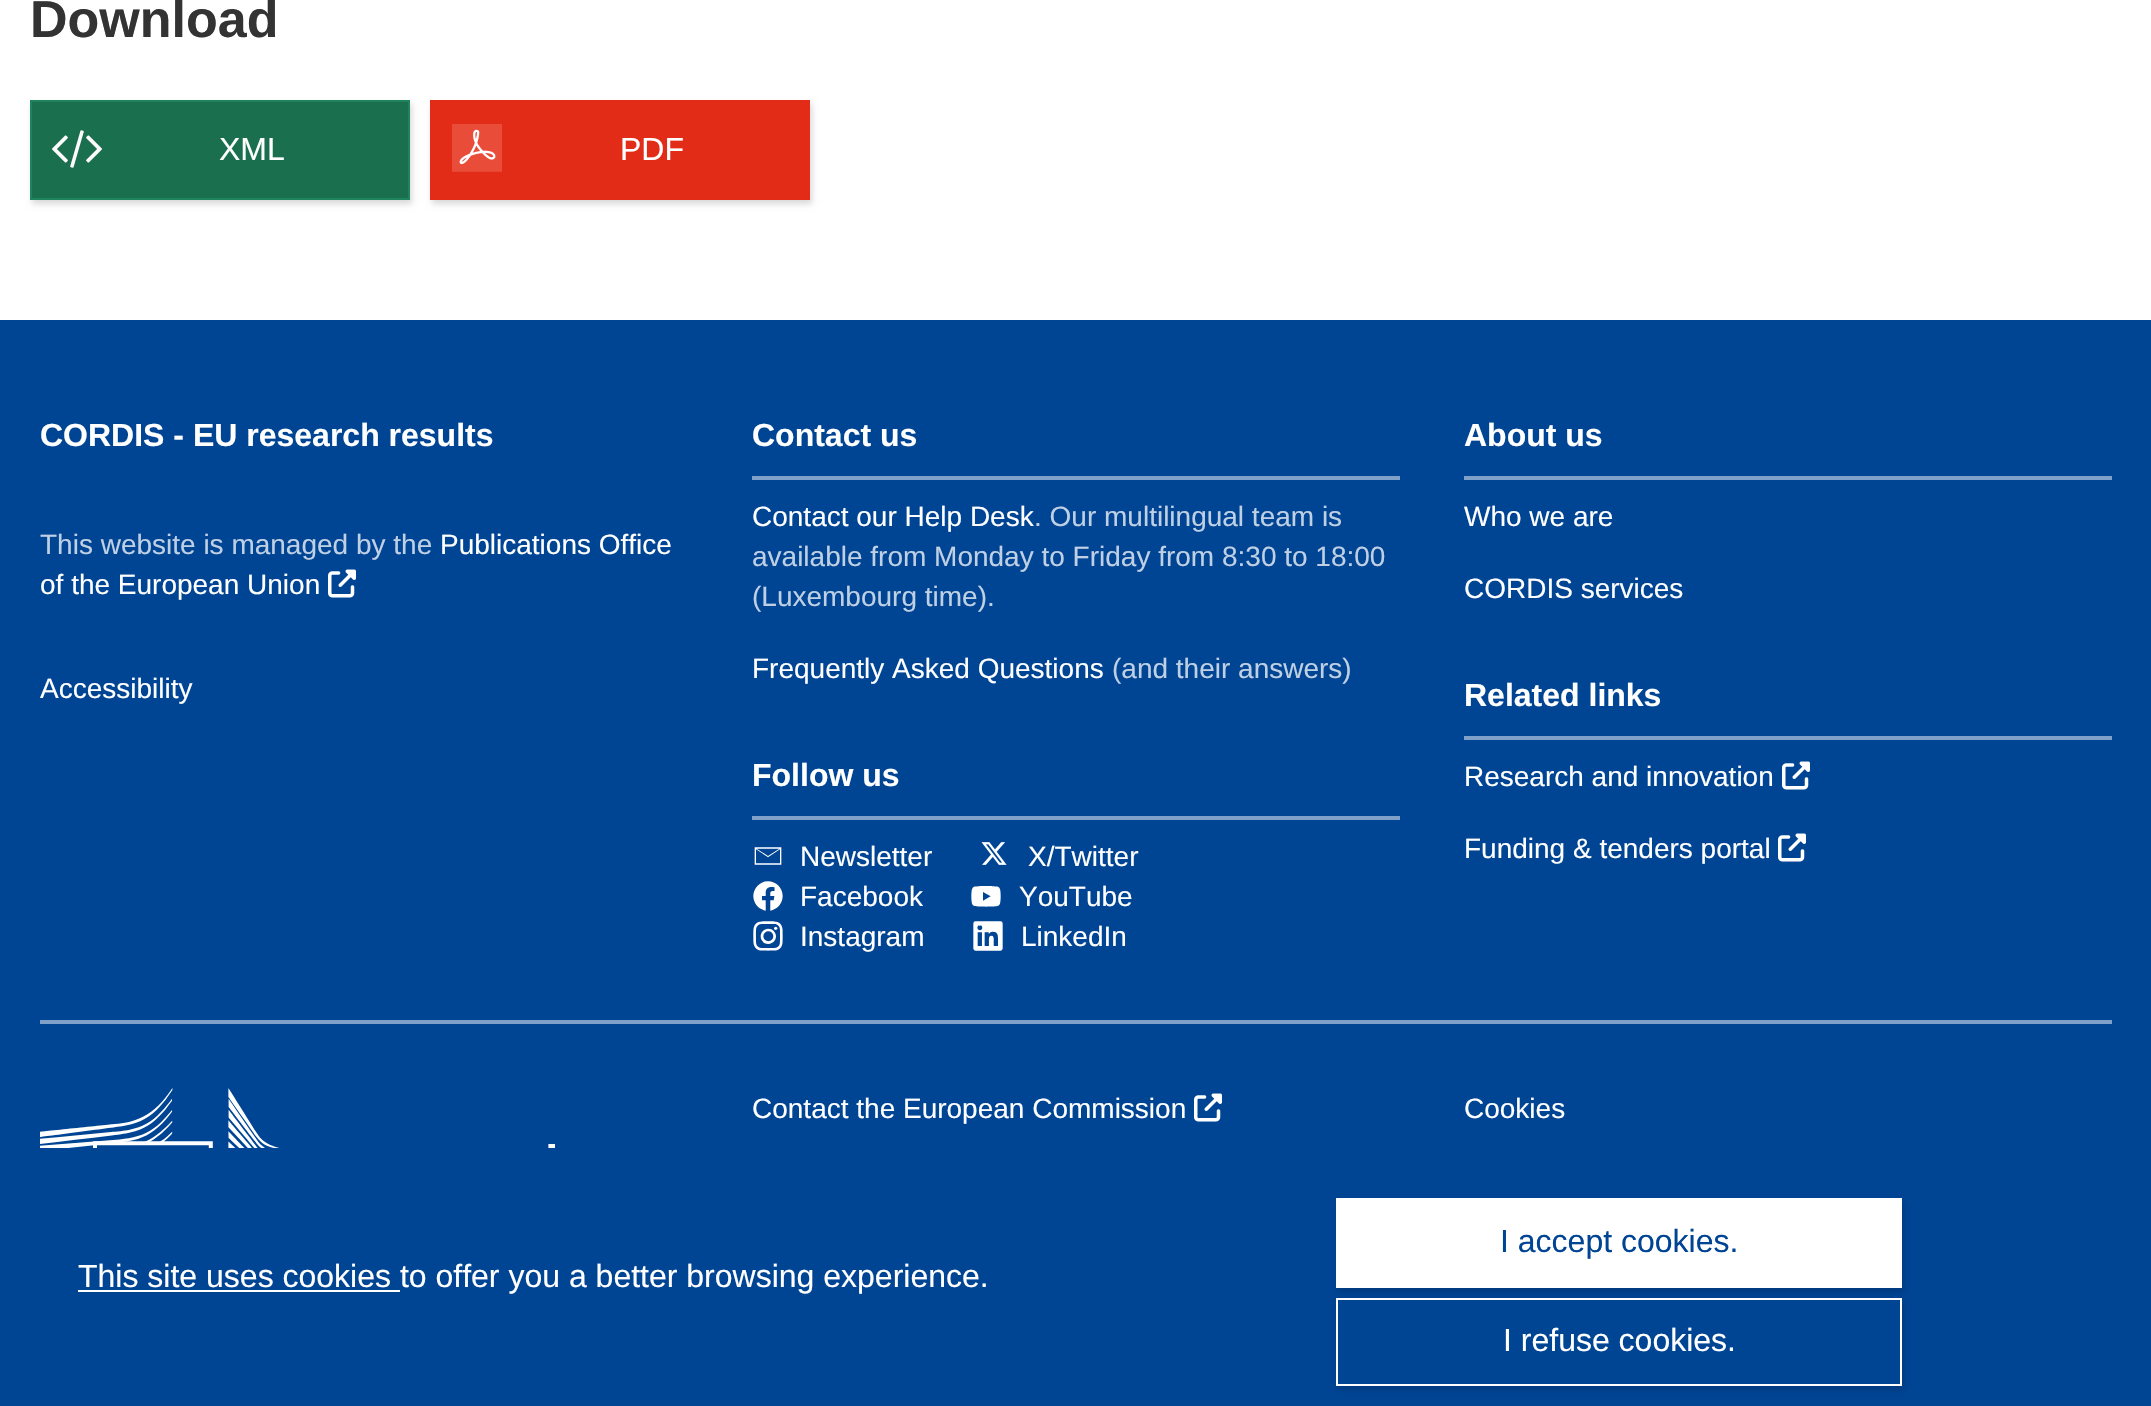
static SkFont makeFont(const char* family, int weight, float size, bool italic = false) {
  SkFontStyle style(weight, SkFontStyle::kNormal_Width,
    italic ? SkFontStyle::kItalic_Slant : SkFontStyle::kUpright_Slant);
  SkFont result(fontMgr->matchFamilyStyle(family, style), size);
  result.setSubpixel(true);
  return result;
}

static void text(SkCanvas* c, const char* s, float x, float y, const SkFont& font, SkColor color) {
  SkPaint ink(SkColor4f::FromColor(color));
  ink.setAntiAlias(true);
  c->drawString(s, x, y, font, ink);
}

static void box(SkCanvas* c, float l, float t, float r, float b, SkColor color) {
  SkPaint ink(SkColor4f::FromColor(color));
  ink.setAntiAlias(true);
  c->drawRect(SkRect::MakeLTRB(l, t, r, b), ink);
}

static void picture(SkCanvas* c, const char* path, float l, float t, float r, float b) {
  auto image = SkImages::DeferredFromEncodedData(SkData::MakeFromFileName(path));
  c->drawImageRect(image, SkRect::MakeLTRB(l, t, r, b), SkSamplingOptions());
}

void draw(SkCanvas* c) {
  SkPaint paint;
  paint.setAntiAlias(true);
  c->clear(0xffffffff);
  SkFont face1 = makeFont("Liberation Sans", 700, 52);
  text(c, "Download", 30, 37, face1, 0xff333333);
  paint.setColor(0x26000000);
  paint.setMaskFilter(SkMaskFilter::MakeBlur(kNormal_SkBlurStyle, 3));
  c->drawRect(SkRect::MakeLTRB(32, 104, 412, 204), paint);
  paint.setMaskFilter(nullptr);
  box(c, 32, 102, 408, 198, 0xff1a6f4e);
  picture(c, "img_01.png", 52, 130, 102, 168);
  paint.setStyle(SkPaint::kStroke_Style);
  paint.setStrokeWidth(2);
  paint.setColor(0xff1f845d);
  c->drawRect(SkRect::MakeLTRB(31, 101, 409, 199), paint);
  SkFont face2 = makeFont("Liberation Sans", 400, 32);
  text(c, "XML", 219, 160, face2, 0xffffffff);
  paint.setStyle(SkPaint::kFill_Style);
  paint.setColor(0x26000000);
  paint.setMaskFilter(SkMaskFilter::MakeBlur(kNormal_SkBlurStyle, 3));
  c->drawRect(SkRect::MakeLTRB(432, 104, 812, 204), paint);
  paint.setMaskFilter(nullptr);
  box(c, 430, 100, 810, 200, 0xffe22c18);
  picture(c, "img_02.png", 452, 124, 502, 172);
  text(c, "PDF", 620, 160, face2, 0xffffffff);
  box(c, 0, 320, 2151, 1406, 0xff004494);
  box(c, 40, 1020, 2112, 1024, 0xff7fa1c9);
  SkFont face3 = makeFont("Liberation Sans", 700, 32);
  text(c, "CORDIS - EU research results", 40, 446, face3, 0xffffffff);
  SkFont face4 = makeFont("Liberation Sans", 400, 28);
  text(c, "This website is managed by the", 40, 554, face4, 0xffbfd0e4);
  text(c, "Publications Office", 440, 554, face4, 0xffffffff);
  text(c, "of the European Union", 40, 594, face4, 0xffffffff);
  picture(c, "img_03.png", 328, 569, 356, 598);
  text(c, "Accessibility", 40, 698, face4, 0xffffffff);
  box(c, 752, 476, 1400, 480, 0xff7fa1c9);
  text(c, "Contact us", 752, 446, face3, 0xffffffff);
  text(c, "Contact our Help Desk", 752, 526, face4, 0xffffffff);
  text(c, ". Our multilingual team is", 1034, 526, face4, 0xffbfd0e4);
  text(c, "available from Monday to Friday from 8:30 to 18:00", 752, 566, face4, 0xffbfd0e4);
  text(c, "(Luxembourg time).", 752, 606, face4, 0xffbfd0e4);
  text(c, "Frequently Asked Questions", 752, 678, face4, 0xffffffff);
  text(c, "(and their answers)", 1112, 678, face4, 0xffbfd0e4);
  box(c, 752, 816, 1400, 820, 0xff7fa1c9);
  text(c, "Follow us", 752, 786, face3, 0xffffffff);
  picture(c, "img_04.png", 754, 847, 782, 865);
  text(c, "Newsletter", 800, 866, face4, 0xffffffff);
  picture(c, "img_05.png", 981, 842, 1007, 865);
  text(c, "X/Twitter", 1028, 866, face4, 0xffffffff);
  picture(c, "img_06.png", 753, 881, 783, 911);
  text(c, "Facebook", 800, 906, face4, 0xffffffff);
  picture(c, "img_07.png", 971, 886, 1001, 907);
  text(c, "YouTube", 1019, 906, face4, 0xffffffff);
  picture(c, "img_08.png", 753, 921, 783, 951);
  text(c, "Instagram", 800, 946, face4, 0xffffffff);
  picture(c, "img_09.png", 973, 921, 1003, 951);
  text(c, "LinkedIn", 1021, 946, face4, 0xffffffff);
  box(c, 1464, 476, 2112, 480, 0xff7fa1c9);
  text(c, "About us", 1464, 446, face3, 0xffffffff);
  text(c, "Who we are", 1464, 526, face4, 0xffffffff);
  text(c, "CORDIS services", 1464, 598, face4, 0xffffffff);
  box(c, 1464, 736, 2112, 740, 0xff7fa1c9);
  text(c, "Related links", 1464, 706, face3, 0xffffffff);
  text(c, "Research and innovation", 1464, 786, face4, 0xffffffff);
  picture(c, "img_03.png", 1782, 761, 1810, 790);
  text(c, "Funding & tenders portal", 1464, 858, face4, 0xffffffff);
  picture(c, "img_03.png", 1778, 833, 1806, 862);
  picture(c, "img_10.png", 40, 1088, 555, 1148);
  text(c, "Contact the European Commission", 752, 1118, face4, 0xffffffff);
  picture(c, "img_03.png", 1194, 1093, 1222, 1122);
  text(c, "Cookies", 1464, 1118, face4, 0xffffffff);
  box(c, 78, 1290, 400, 1292, 0xffffffff);
  text(c, "This site uses cookies to offer you a better browsing experience.", 78, 1287, face2, 0xffffffff);
  paint.setMaskFilter(SkMaskFilter::MakeBlur(kNormal_SkBlurStyle, 3));
  c->drawRect(SkRect::MakeLTRB(1338, 1202, 1904, 1292), paint);
  paint.setMaskFilter(nullptr);
  box(c, 1336, 1198, 1902, 1288, 0xffffffff);
  text(c, "I accept cookies.", 1500, 1252, face2, 0xff004494);
  c->save();
  c->clipPath(SkPathBuilder(SkPathFillType::kEvenOdd).moveTo(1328, 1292).lineTo(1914, 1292).lineTo(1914, 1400).lineTo(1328, 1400).close().moveTo(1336, 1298).lineTo(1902, 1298).lineTo(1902, 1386).lineTo(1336, 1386).close().detach(), true);
  paint.setMaskFilter(SkMaskFilter::MakeBlur(kNormal_SkBlurStyle, 3));
  c->drawRect(SkRect::MakeLTRB(1338, 1302, 1904, 1390), paint);
  paint.setMaskFilter(nullptr);
  c->restore();
  paint.setStyle(SkPaint::kStroke_Style);
  paint.setColor(0xffffffff);
  c->drawRect(SkRect::MakeLTRB(1337, 1299, 1901, 1385), paint);
  text(c, "I refuse cookies.", 1503, 1351, face2, 0xffffffff);
}
